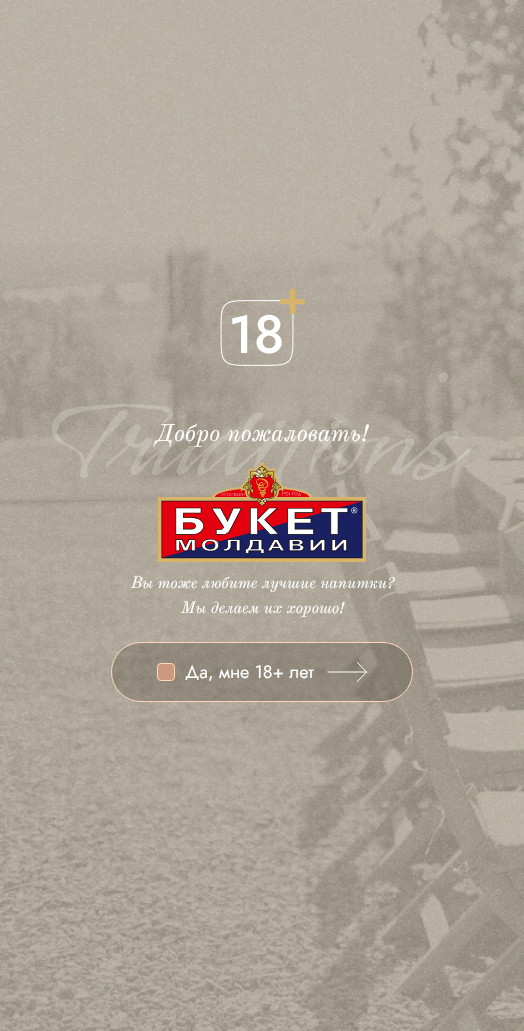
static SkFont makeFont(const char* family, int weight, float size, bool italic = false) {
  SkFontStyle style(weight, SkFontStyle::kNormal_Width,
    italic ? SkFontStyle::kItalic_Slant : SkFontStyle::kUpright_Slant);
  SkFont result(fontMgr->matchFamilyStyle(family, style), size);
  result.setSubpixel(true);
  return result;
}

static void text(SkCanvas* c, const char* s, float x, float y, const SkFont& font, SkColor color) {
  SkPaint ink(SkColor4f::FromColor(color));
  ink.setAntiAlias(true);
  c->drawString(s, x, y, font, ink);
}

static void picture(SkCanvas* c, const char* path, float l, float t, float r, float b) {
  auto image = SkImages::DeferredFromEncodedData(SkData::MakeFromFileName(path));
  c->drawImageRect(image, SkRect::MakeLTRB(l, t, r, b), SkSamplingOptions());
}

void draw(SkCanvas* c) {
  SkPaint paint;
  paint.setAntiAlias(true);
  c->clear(0xffffffff);
  picture(c, "img_01.png", 0, 0, 524, 1031);
  picture(c, "img_02.png", 52, 404, 472, 484);
  picture(c, "img_03.png", 220, 289, 305, 366);
  SkFont face1 = makeFont("Old Standard TT", 400, 24, true);
  text(c, "Добро пожаловать!", 156, 441, face1, 0xffffffff);
  picture(c, "img_04.png", 158, 462, 366, 562);
  SkFont face2 = makeFont("Old Standard TT", 400, 16, true);
  text(c, "Вы тоже любите лучшие напитки?", 131, 588, face2, 0xffffffff);
  text(c, "Мы делаем их хорошо!", 181, 613, face2, 0xffffffff);
  paint.setColor(0x331e1709);
  c->drawRoundRect(SkRect::MakeLTRB(111.5f, 642.5f, 412.5f, 701.5f), 29.5f, 29.5f, paint);
  paint.setStyle(SkPaint::kStroke_Style);
  paint.setStrokeWidth(1);
  paint.setColor(0xffffd6ba);
  c->drawRoundRect(SkRect::MakeLTRB(111.5f, 642.5f, 412.5f, 701.5f), 29.5f, 29.5f, paint);
  paint.setStyle(SkPaint::kFill_Style);
  paint.setColor(0xffcb997e);
  c->drawRoundRect(SkRect::MakeLTRB(157.5f, 663.5f, 174.5f, 680.5f), 3.5f, 3.5f, paint);
  paint.setStyle(SkPaint::kStroke_Style);
  paint.setColor(0xffffd6ba);
  c->drawRoundRect(SkRect::MakeLTRB(157.5f, 663.5f, 174.5f, 680.5f), 3.5f, 3.5f, paint);
  SkFont face3 = makeFont("Jost", 400, 18);
  text(c, "Да, мне 18+ лет", 185, 678, face3, 0xffffffff);
  paint.setStrokeCap(SkPaint::kRound_Cap);
  paint.setStrokeJoin(SkPaint::kRound_Join);
  paint.setColor(0xffffffff);
  c->drawPath(SkPathBuilder().moveTo(328, 672).lineTo(366.5f, 672).moveTo(366.5f, 672).lineTo(357.5f, 662.5f).moveTo(366.5f, 672).lineTo(357.5f, 681.5f).detach(), paint);
}
